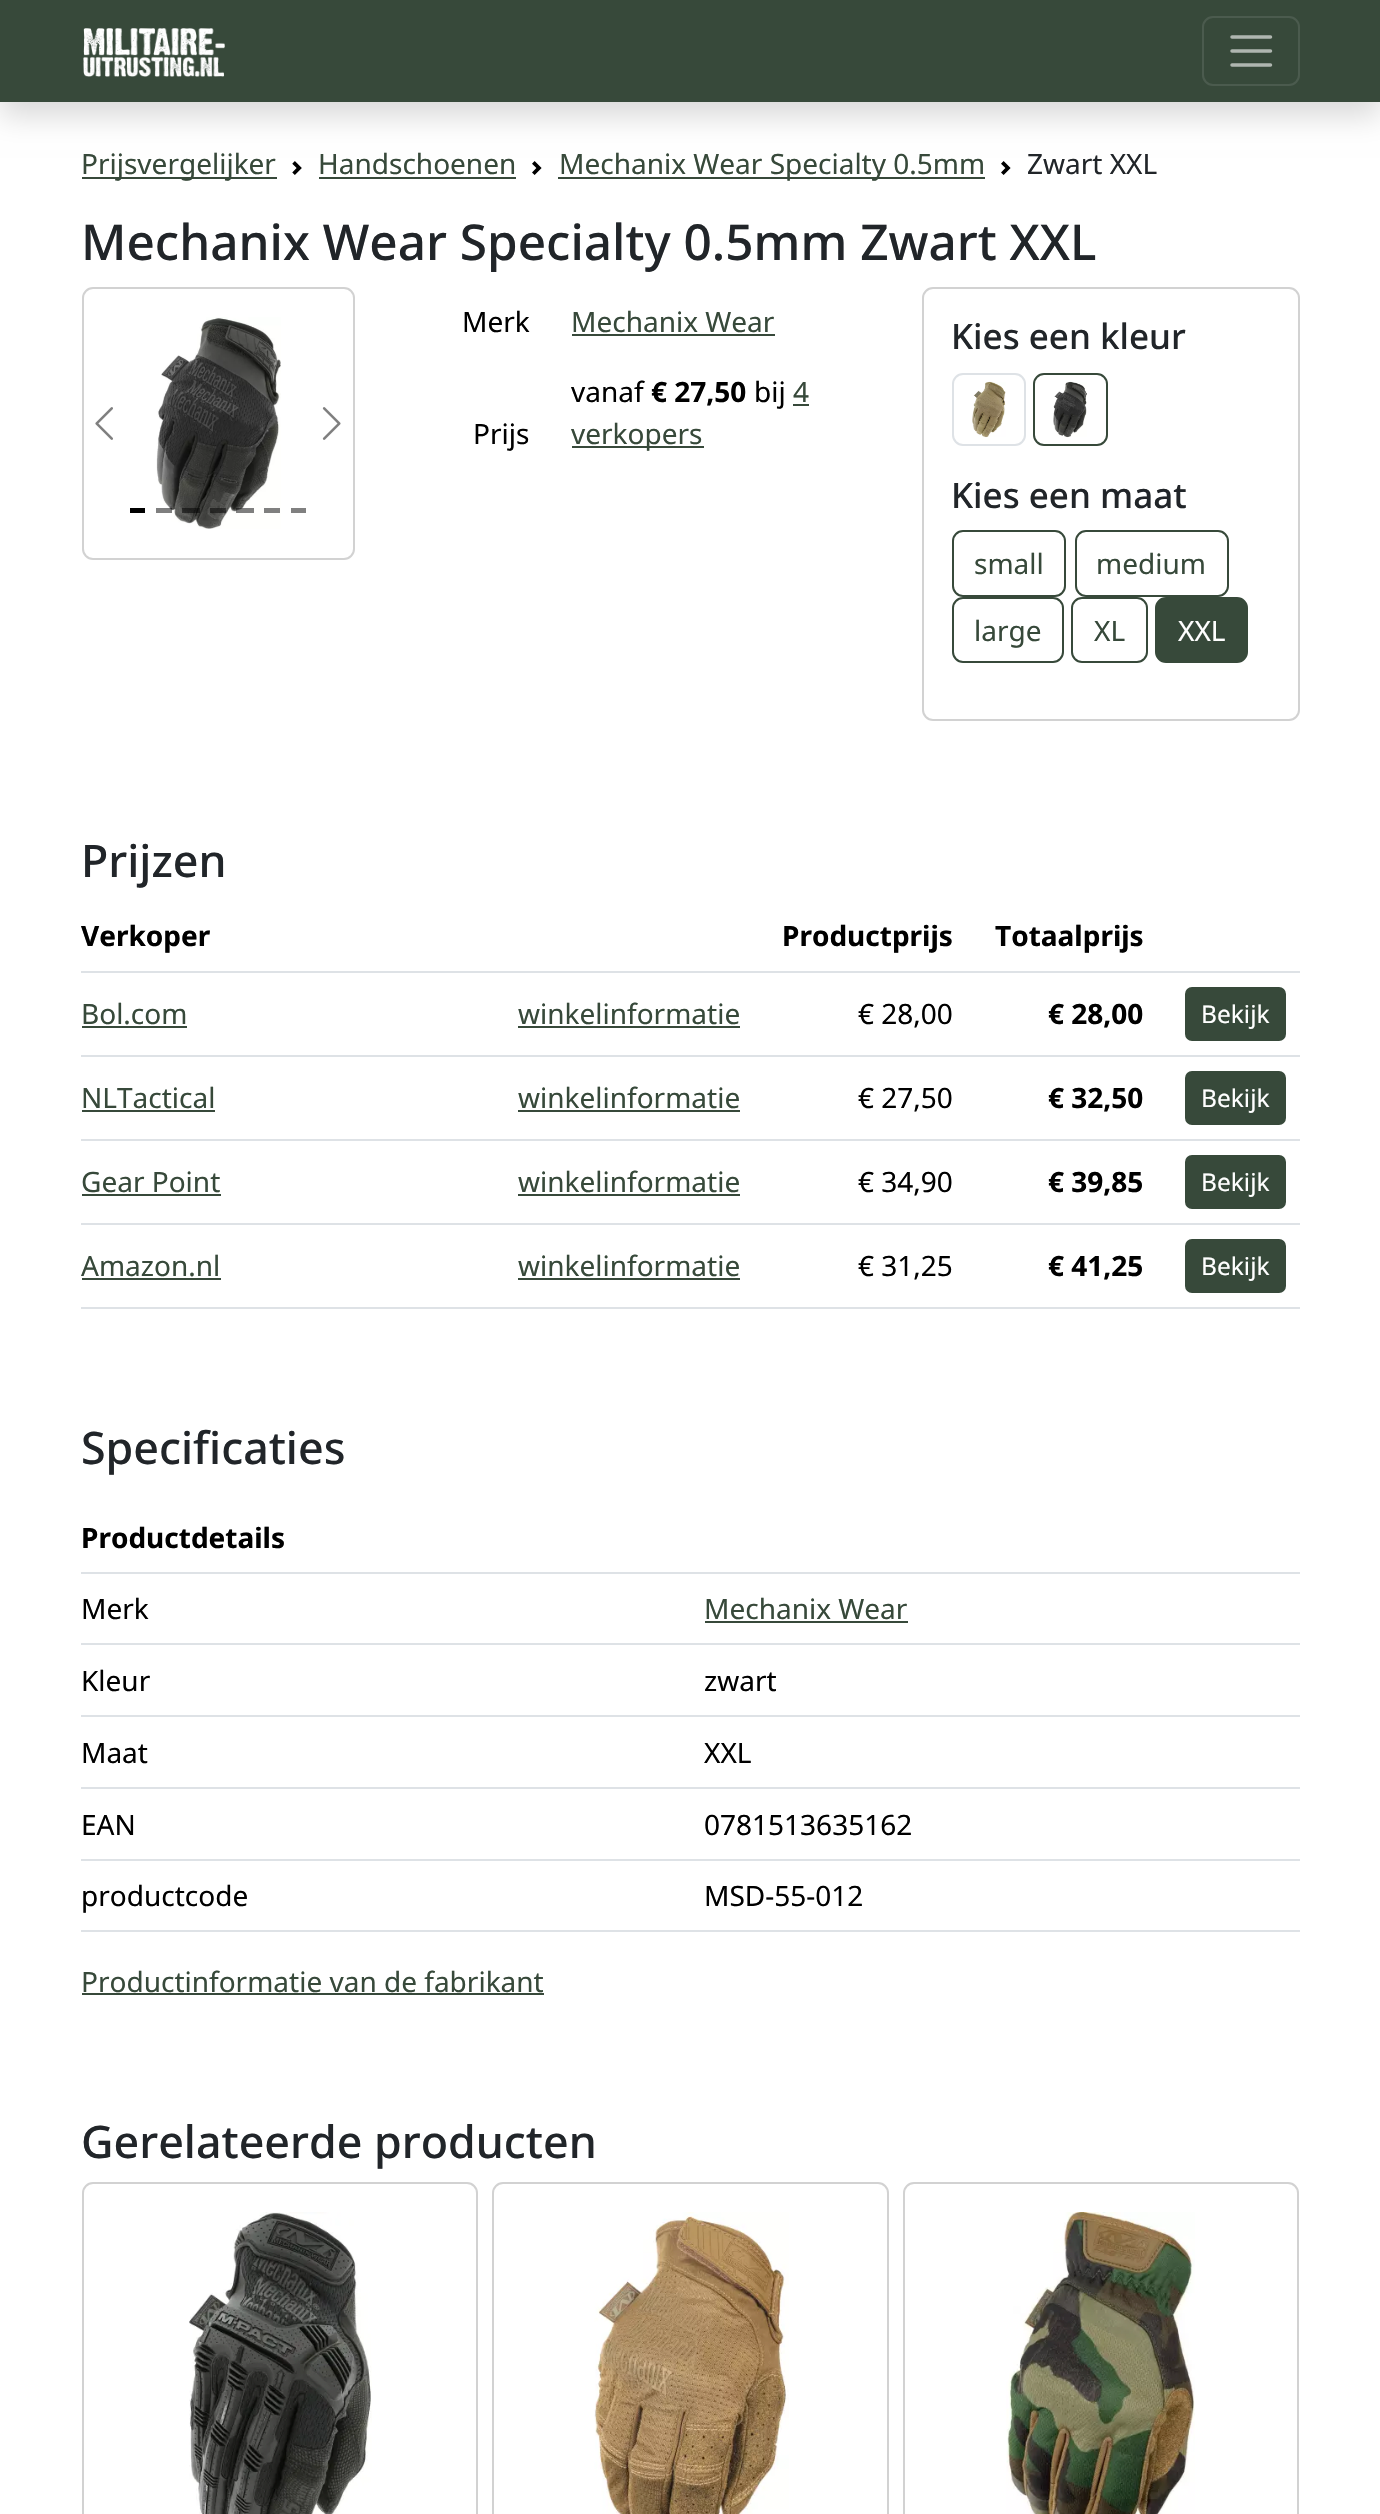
static SkFont makeFont(const char* family, int weight, float size, bool italic = false) {
  SkFontStyle style(weight, SkFontStyle::kNormal_Width,
    italic ? SkFontStyle::kItalic_Slant : SkFontStyle::kUpright_Slant);
  SkFont result(fontMgr->matchFamilyStyle(family, style), size);
  result.setSubpixel(true);
  return result;
}

static void text(SkCanvas* c, const char* s, float x, float y, const SkFont& font, SkColor color) {
  SkPaint ink(SkColor4f::FromColor(color));
  ink.setAntiAlias(true);
  c->drawString(s, x, y, font, ink);
}

static void box(SkCanvas* c, float l, float t, float r, float b, SkColor color) {
  SkPaint ink(SkColor4f::FromColor(color));
  ink.setAntiAlias(true);
  c->drawRect(SkRect::MakeLTRB(l, t, r, b), ink);
}

static void picture(SkCanvas* c, const char* path, float l, float t, float r, float b) {
  auto image = SkImages::DeferredFromEncodedData(SkData::MakeFromFileName(path));
  c->drawImageRect(image, SkRect::MakeLTRB(l, t, r, b), SkSamplingOptions());
}

void draw(SkCanvas* c) {
  SkPaint paint;
  paint.setAntiAlias(true);
  c->clear(0xffffffff);
  paint.setColor(0x26000000);
  paint.setMaskFilter(SkMaskFilter::MakeBlur(kNormal_SkBlurStyle, 14));
  c->drawRect(SkRect::MakeLTRB(0, 14, 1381, 116), paint);
  paint.setMaskFilter(nullptr);
  box(c, 0, 0, 1380, 102, 0xff37493a);
  picture(c, "img_01.png", 83, 28, 225, 77);
  paint.setStyle(SkPaint::kStroke_Style);
  paint.setStrokeWidth(2);
  paint.setColor(0xff4b5b4e);
  c->drawRoundRect(SkRect::MakeLTRB(1203, 17, 1299, 85), 10, 10, paint);
  paint.setStrokeWidth(3.5f);
  paint.setStrokeCap(SkPaint::kRound_Cap);
  paint.setColor(0xffafb6b0);
  c->drawPath(SkPathBuilder().moveTo(1232, 37).lineTo(1270.5f, 37).moveTo(1232, 51).lineTo(1270.5f, 51).moveTo(1232, 65).lineTo(1270.5f, 65).detach(), paint);
  box(c, 82, 177, 277, 179, 0xff37493a);
  SkFont face1 = makeFont("Noto Sans", 400, 28);
  text(c, "Prijsvergelijker", 81, 174, face1, 0xff37493a);
  picture(c, "img_02.png", 292, 161, 302, 175);
  text(c, "Handschoenen", 318, 174, face1, 0xff37493a);
  box(c, 319, 177, 516, 179, 0xff37493a);
  picture(c, "img_03.png", 532, 161, 542, 175);
  box(c, 558, 177, 985, 179, 0xff37493a);
  text(c, "Mechanix Wear Specialty 0.5mm", 559, 174, face1, 0xff37493a);
  picture(c, "img_03.png", 1001, 161, 1011, 175);
  text(c, "Zwart XXL", 1027, 174, face1, 0xff212529);
  SkFont face2 = makeFont("Noto Sans", 500, 49.5f);
  text(c, "Mechanix Wear Specialty 0.5mm Zwart XXL", 81, 260, face2, 0xff212529);
  paint.setStrokeWidth(2);
  paint.setStrokeCap(SkPaint::kButt_Cap);
  paint.setColor(0xffd2d2d2);
  c->drawRoundRect(SkRect::MakeLTRB(83, 288, 354, 559), 10, 10, paint);
  picture(c, "img_04.png", 95, 407, 113, 440);
  picture(c, "img_05.png", 156, 317, 281, 529);
  picture(c, "img_06.png", 322, 407, 341, 440);
  box(c, 130, 508, 145, 513, 0xff000000);
  box(c, 156, 508, 172, 513, 0x80000000);
  box(c, 182, 508, 200, 513, 0x80000000);
  box(c, 210, 508, 226, 513, 0x80000000);
  box(c, 236, 508, 254, 513, 0x80000000);
  box(c, 264, 508, 280, 513, 0xff80807f);
  box(c, 291, 508, 306, 513, 0xff808080);
  text(c, "Merk", 462, 332, face1, 0xff000000);
  text(c, "Mechanix Wear", 571, 332, face1, 0xff37493a);
  box(c, 572, 334, 775, 336, 0xff37493a);
  text(c, "Prijs", 473, 444, face1, 0xff000000);
  text(c, "vanaf", 571, 402, face1, 0xff000000);
  SkFont face3 = makeFont("Noto Sans", 700, 28);
  text(c, "€ 27,50", 651, 402, face3, 0xff000000);
  text(c, "bij", 754, 402, face1, 0xff000000);
  text(c, "4", 793, 402, face1, 0xff37493a);
  box(c, 793, 404, 809, 406, 0xff37493a);
  box(c, 572, 446, 704, 448, 0xff37493a);
  text(c, "verkopers", 571, 444, face1, 0xff37493a);
  c->drawRoundRect(SkRect::MakeLTRB(923, 288, 1299, 720), 10, 10, paint);
  SkFont face4 = makeFont("Noto Sans", 500, 35);
  text(c, "Kies een kleur", 951, 349, face4, 0xff212529);
  paint.setColor(0xffdee2e6);
  c->drawRoundRect(SkRect::MakeLTRB(953, 374, 1025, 445), 10, 10, paint);
  picture(c, "img_07.png", 972, 381, 1006, 438);
  paint.setColor(0xff37493a);
  c->drawRoundRect(SkRect::MakeLTRB(1034, 374, 1107, 445), 10, 10, paint);
  picture(c, "img_08.png", 1053, 381, 1087, 438);
  text(c, "Kies een maat", 951, 508, face4, 0xff212529);
  c->drawRoundRect(SkRect::MakeLTRB(953, 531, 1065, 596), 10, 10, paint);
  text(c, "small", 974, 574, face1, 0xff37493a);
  c->drawRoundRect(SkRect::MakeLTRB(1076, 531, 1228, 596), 10, 10, paint);
  text(c, "medium", 1096, 574, face1, 0xff37493a);
  c->drawRoundRect(SkRect::MakeLTRB(953, 598, 1063, 662), 10, 10, paint);
  text(c, "large", 974, 641, face1, 0xff37493a);
  c->drawRoundRect(SkRect::MakeLTRB(1072, 598, 1147, 662), 10, 10, paint);
  text(c, "XL", 1094, 641, face1, 0xff37493a);
  paint.setStyle(SkPaint::kFill_Style);
  c->drawRoundRect(SkRect::MakeLTRB(1156, 598, 1247, 662), 10, 10, paint);
  paint.setStyle(SkPaint::kStroke_Style);
  c->drawRoundRect(SkRect::MakeLTRB(1156, 598, 1247, 662), 10, 10, paint);
  text(c, "XXL", 1178, 641, face1, 0xffffffff);
  SkFont face5 = makeFont("Noto Sans", 500, 44.75f);
  text(c, "Prijzen", 81, 877, face5, 0xff212529);
  text(c, "Verkoper", 81, 946, face3, 0xff000000);
  text(c, "Productprijs", 782, 946, face3, 0xff000000);
  text(c, "Totaalprijs", 995, 946, face3, 0xff000000);
  box(c, 81, 971, 1300, 973, 0xffdee2e6);
  text(c, "Bol.com", 81, 1024, face1, 0xff37493a);
  box(c, 82, 1026, 187, 1028, 0xff37493a);
  text(c, "winkelinformatie", 518, 1024, face1, 0xff37493a);
  box(c, 518, 1026, 740, 1028, 0xff37493a);
  text(c, "€ 28,00", 858, 1024, face1, 0xff000000);
  text(c, "€ 28,00", 1048, 1024, face3, 0xff000000);
  box(c, 81, 1055, 1300, 1057, 0xffdee2e6);
  paint.setStyle(SkPaint::kFill_Style);
  c->drawRoundRect(SkRect::MakeLTRB(1186, 988, 1285, 1040), 6, 6, paint);
  paint.setStyle(SkPaint::kStroke_Style);
  c->drawRoundRect(SkRect::MakeLTRB(1186, 988, 1285, 1040), 6, 6, paint);
  SkFont face6 = makeFont("Noto Sans", 400, 24.5f);
  text(c, "Bekijk", 1201, 1023, face6, 0xffffffff);
  text(c, "NLTactical", 81, 1108, face1, 0xff37493a);
  box(c, 82, 1110, 215, 1112, 0xff37493a);
  text(c, "winkelinformatie", 518, 1108, face1, 0xff37493a);
  box(c, 518, 1110, 740, 1112, 0xff37493a);
  text(c, "€ 27,50", 858, 1108, face1, 0xff000000);
  text(c, "€ 32,50", 1048, 1108, face3, 0xff000000);
  box(c, 81, 1139, 1300, 1141, 0xffdee2e6);
  paint.setStyle(SkPaint::kFill_Style);
  c->drawRoundRect(SkRect::MakeLTRB(1186, 1072, 1285, 1124), 6, 6, paint);
  paint.setStyle(SkPaint::kStroke_Style);
  c->drawRoundRect(SkRect::MakeLTRB(1186, 1072, 1285, 1124), 6, 6, paint);
  text(c, "Bekijk", 1201, 1107, face6, 0xffffffff);
  text(c, "Gear Point", 81, 1192, face1, 0xff37493a);
  box(c, 82, 1194, 221, 1196, 0xff37493a);
  text(c, "winkelinformatie", 518, 1192, face1, 0xff37493a);
  box(c, 518, 1194, 740, 1196, 0xff37493a);
  text(c, "€ 34,90", 858, 1192, face1, 0xff000000);
  text(c, "€ 39,85", 1048, 1192, face3, 0xff000000);
  box(c, 81, 1223, 1300, 1225, 0xffdee2e6);
  paint.setStyle(SkPaint::kFill_Style);
  c->drawRoundRect(SkRect::MakeLTRB(1186, 1156, 1285, 1208), 6, 6, paint);
  paint.setStyle(SkPaint::kStroke_Style);
  c->drawRoundRect(SkRect::MakeLTRB(1186, 1156, 1285, 1208), 6, 6, paint);
  text(c, "Bekijk", 1201, 1191, face6, 0xffffffff);
  text(c, "Amazon.nl", 81, 1276, face1, 0xff37493a);
  box(c, 82, 1278, 221, 1280, 0xff37493a);
  text(c, "winkelinformatie", 518, 1276, face1, 0xff37493a);
  box(c, 518, 1278, 740, 1280, 0xff37493a);
  text(c, "€ 31,25", 858, 1276, face1, 0xff000000);
  text(c, "€ 41,25", 1048, 1276, face3, 0xff000000);
  box(c, 81, 1307, 1300, 1309, 0xffdee2e6);
  paint.setStyle(SkPaint::kFill_Style);
  c->drawRoundRect(SkRect::MakeLTRB(1186, 1240, 1285, 1292), 6, 6, paint);
  paint.setStyle(SkPaint::kStroke_Style);
  c->drawRoundRect(SkRect::MakeLTRB(1186, 1240, 1285, 1292), 6, 6, paint);
  text(c, "Bekijk", 1201, 1275, face6, 0xffffffff);
  text(c, "Specificaties", 81, 1464, face5, 0xff212529);
  box(c, 81, 1572, 1300, 1574, 0xffdee2e6);
  text(c, "Productdetails", 81, 1548, face3, 0xff000000);
  text(c, "Merk", 81, 1619, face1, 0xff000000);
  box(c, 81, 1643, 1300, 1645, 0xffdee2e6);
  text(c, "Mechanix Wear", 704, 1619, face1, 0xff37493a);
  box(c, 705, 1621, 908, 1623, 0xff37493a);
  text(c, "Kleur", 81, 1691, face1, 0xff000000);
  box(c, 81, 1715, 1300, 1717, 0xffdee2e6);
  text(c, "zwart", 704, 1691, face1, 0xff000000);
  text(c, "Maat", 81, 1763, face1, 0xff000000);
  box(c, 81, 1787, 1300, 1789, 0xffdee2e6);
  text(c, "XXL", 704, 1763, face1, 0xff000000);
  text(c, "EAN", 81, 1835, face1, 0xff000000);
  box(c, 81, 1859, 1300, 1861, 0xffdee2e6);
  text(c, "0781513635162", 704, 1835, face1, 0xff000000);
  text(c, "productcode", 81, 1906, face1, 0xff000000);
  box(c, 81, 1930, 1300, 1932, 0xffdee2e6);
  text(c, "MSD-55-012", 704, 1906, face1, 0xff000000);
  text(c, "Productinformatie van de fabrikant", 81, 1992, face1, 0xff37493a);
  box(c, 82, 1993, 544, 1995, 0xff37493a);
  text(c, "Gerelateerde producten", 81, 2158, face5, 0xff212529);
  paint.setColor(0xffd2d2d2);
  c->drawRoundRect(SkRect::MakeLTRB(83, 2183, 477, 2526), 10, 10, paint);
  picture(c, "img_09.png", 189, 2212, 372, 2514);
  c->drawRoundRect(SkRect::MakeLTRB(493, 2183, 888, 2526), 10, 10, paint);
  picture(c, "img_10.png", 594, 2212, 789, 2514);
  c->drawRoundRect(SkRect::MakeLTRB(904, 2183, 1298, 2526), 10, 10, paint);
  picture(c, "img_11.png", 1006, 2212, 1195, 2514);
}
